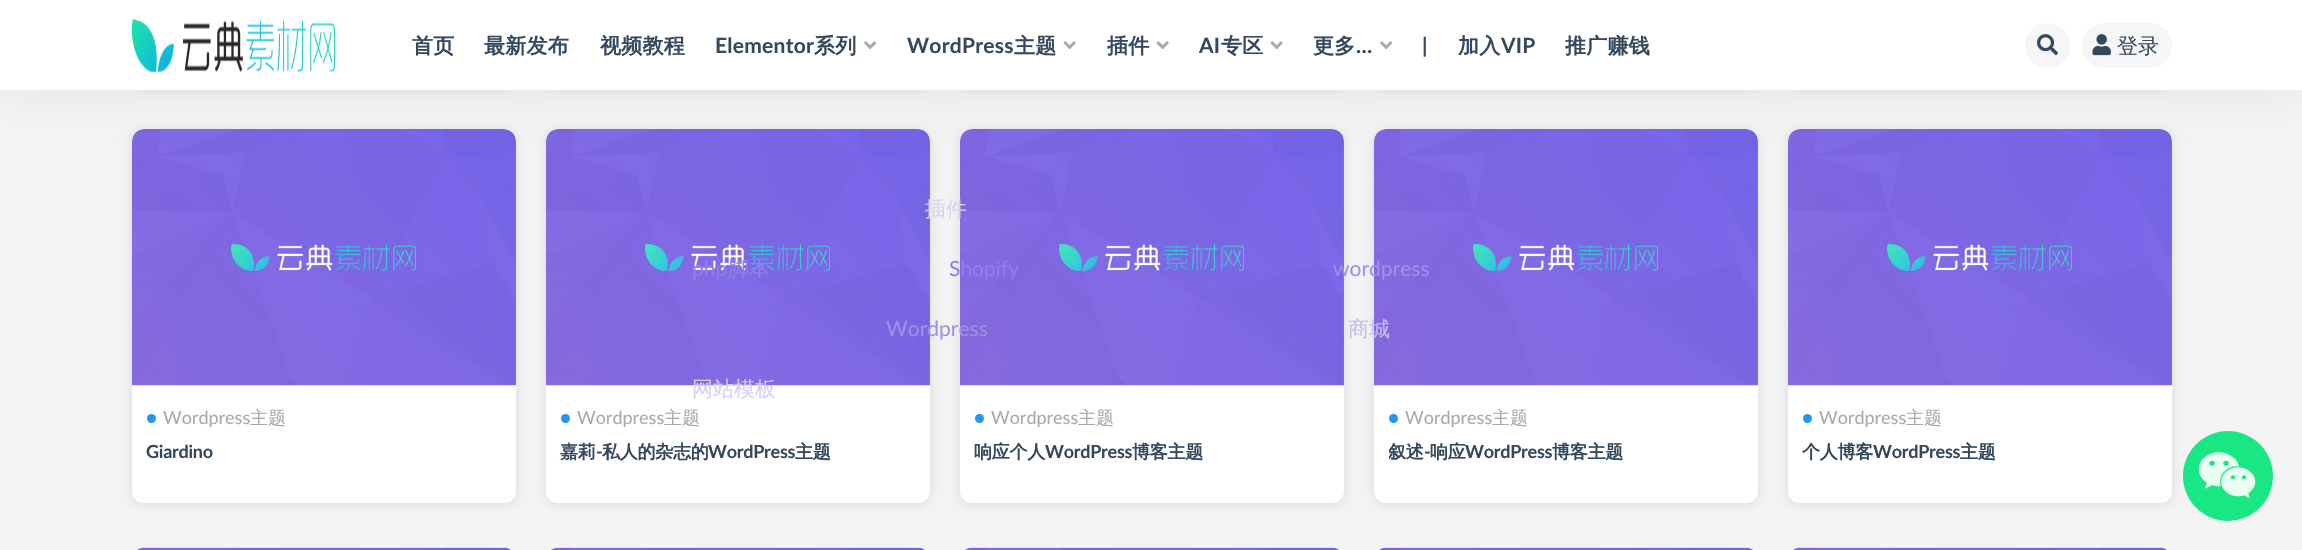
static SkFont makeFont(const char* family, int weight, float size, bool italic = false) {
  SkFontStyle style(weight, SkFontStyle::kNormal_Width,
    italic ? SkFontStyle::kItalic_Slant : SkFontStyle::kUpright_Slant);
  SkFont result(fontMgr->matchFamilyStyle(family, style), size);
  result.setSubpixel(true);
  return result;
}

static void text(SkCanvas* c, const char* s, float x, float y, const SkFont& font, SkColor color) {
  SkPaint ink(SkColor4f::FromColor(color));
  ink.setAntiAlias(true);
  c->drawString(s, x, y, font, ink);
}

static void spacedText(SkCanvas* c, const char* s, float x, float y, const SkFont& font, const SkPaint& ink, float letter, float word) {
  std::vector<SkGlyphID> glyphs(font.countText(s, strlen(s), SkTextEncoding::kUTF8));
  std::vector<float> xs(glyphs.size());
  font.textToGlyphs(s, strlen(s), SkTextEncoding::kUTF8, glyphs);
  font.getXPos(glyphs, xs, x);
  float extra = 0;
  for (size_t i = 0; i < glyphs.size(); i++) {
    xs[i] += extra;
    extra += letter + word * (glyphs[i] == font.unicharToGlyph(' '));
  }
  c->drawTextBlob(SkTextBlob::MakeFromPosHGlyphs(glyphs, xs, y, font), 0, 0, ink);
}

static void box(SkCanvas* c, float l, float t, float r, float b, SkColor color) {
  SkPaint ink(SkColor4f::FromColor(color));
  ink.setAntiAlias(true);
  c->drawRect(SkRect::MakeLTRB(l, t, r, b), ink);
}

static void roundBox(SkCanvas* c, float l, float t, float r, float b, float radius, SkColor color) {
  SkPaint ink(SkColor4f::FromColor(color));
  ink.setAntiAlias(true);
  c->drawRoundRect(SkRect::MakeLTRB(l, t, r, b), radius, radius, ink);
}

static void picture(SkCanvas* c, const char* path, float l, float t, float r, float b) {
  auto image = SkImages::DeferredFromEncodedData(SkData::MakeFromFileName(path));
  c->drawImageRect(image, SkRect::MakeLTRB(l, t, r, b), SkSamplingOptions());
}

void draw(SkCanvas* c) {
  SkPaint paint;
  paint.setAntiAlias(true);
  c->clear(0xfff4f4f4);
  paint.setColor(0x1a000000);
  paint.setMaskFilter(SkMaskFilter::MakeBlur(kNormal_SkBlurStyle, 6));
  c->drawRoundRect(SkRect::MakeLTRB(132, 131, 516, 504), 12, 12, paint);
  paint.setMaskFilter(nullptr);
  roundBox(c, 132, 129, 516, 503, 12, 0xffffffff);
  picture(c, "img_06.png", 132, 129, 516, 386);
  paint.setMaskFilter(SkMaskFilter::MakeBlur(kNormal_SkBlurStyle, 6));
  c->drawRoundRect(SkRect::MakeLTRB(546, 131, 930, 504), 12, 12, paint);
  paint.setMaskFilter(nullptr);
  roundBox(c, 546, 129, 930, 503, 12, 0xffffffff);
  picture(c, "img_07.png", 546, 129, 930, 386);
  paint.setMaskFilter(SkMaskFilter::MakeBlur(kNormal_SkBlurStyle, 6));
  c->drawRoundRect(SkRect::MakeLTRB(960, 131, 1344, 504), 12, 12, paint);
  paint.setMaskFilter(nullptr);
  roundBox(c, 960, 129, 1344, 503, 12, 0xffffffff);
  picture(c, "img_07.png", 960, 129, 1344, 386);
  paint.setMaskFilter(SkMaskFilter::MakeBlur(kNormal_SkBlurStyle, 6));
  c->drawRoundRect(SkRect::MakeLTRB(1374, 131, 1758, 504), 12, 12, paint);
  paint.setMaskFilter(nullptr);
  roundBox(c, 1374, 129, 1758, 503, 12, 0xffffffff);
  picture(c, "img_07.png", 1374, 129, 1758, 386);
  paint.setMaskFilter(SkMaskFilter::MakeBlur(kNormal_SkBlurStyle, 6));
  c->drawRoundRect(SkRect::MakeLTRB(1788, 131, 2172, 504), 12, 12, paint);
  paint.setMaskFilter(nullptr);
  roundBox(c, 1788, 129, 2172, 503, 12, 0xffffffff);
  picture(c, "img_07.png", 1788, 129, 2172, 386);
  paint.setColor(0x12000000);
  paint.setMaskFilter(SkMaskFilter::MakeBlur(kNormal_SkBlurStyle, 22.5f));
  c->drawRect(SkRect::MakeLTRB(0, 0, 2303, 90), paint);
  paint.setMaskFilter(nullptr);
  paint.setColor(0x1a000000);
  paint.setMaskFilter(SkMaskFilter::MakeBlur(kNormal_SkBlurStyle, 6));
  c->drawRoundRect(SkRect::MakeLTRB(132, -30, 516, 86), 12, 12, paint);
  paint.setMaskFilter(nullptr);
  paint.setMaskFilter(SkMaskFilter::MakeBlur(kNormal_SkBlurStyle, 6));
  c->drawRoundRect(SkRect::MakeLTRB(546, -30, 930, 86), 12, 12, paint);
  paint.setMaskFilter(nullptr);
  paint.setMaskFilter(SkMaskFilter::MakeBlur(kNormal_SkBlurStyle, 6));
  c->drawRoundRect(SkRect::MakeLTRB(960, -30, 1344, 86), 12, 12, paint);
  paint.setMaskFilter(nullptr);
  paint.setMaskFilter(SkMaskFilter::MakeBlur(kNormal_SkBlurStyle, 6));
  c->drawRoundRect(SkRect::MakeLTRB(1374, -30, 1758, 86), 12, 12, paint);
  paint.setMaskFilter(nullptr);
  paint.setMaskFilter(SkMaskFilter::MakeBlur(kNormal_SkBlurStyle, 6));
  c->drawRoundRect(SkRect::MakeLTRB(1788, -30, 2172, 86), 12, 12, paint);
  paint.setMaskFilter(nullptr);
  box(c, 0, 0, 2302, 90, 0xffffffff);
  picture(c, "img_01.png", 132, 19, 336, 72);
  SkFont face1 = makeFont("WenQuanYi Zen Hei", 700, 21);
  paint.setColor(0xff34495e);
  spacedText(c, "首页", 412, 53, face1, paint, 0.25f, 0);
  spacedText(c, "最新发布", 484, 53, face1, paint, 0.25f, 0);
  spacedText(c, "视频教程", 600, 53, face1, paint, 0.25f, 0);
  SkFont face2 = makeFont("Lato", 700, 21);
  spacedText(c, "Elementor", 715, 53, face2, paint, 0.25f, 0);
  spacedText(c, "系列", 814, 53, face1, paint, 0.25f, 0);
  picture(c, "img_02.png", 864, 41, 877, 49);
  spacedText(c, "WordPress", 907, 53, face2, paint, 0.25f, 0);
  spacedText(c, "主题", 1014, 53, face1, paint, 0.25f, 0);
  picture(c, "img_03.png", 1063, 41, 1076, 49);
  spacedText(c, "插件", 1107, 53, face1, paint, 0.25f, 0);
  picture(c, "img_03.png", 1156, 41, 1169, 49);
  spacedText(c, "AI", 1199, 53, face2, paint, 0.25f, 0);
  spacedText(c, "专区", 1221, 53, face1, paint, 0.25f, 0);
  picture(c, "img_03.png", 1270, 41, 1283, 49);
  spacedText(c, "更多", 1313, 53, face1, paint, 0.25f, 0);
  picture(c, "img_02.png", 1380, 41, 1393, 49);
  spacedText(c, "…", 1356, 53, face2, paint, 0.25f, 0);
  spacedText(c, "|", 1422, 53, face2, paint, 0.25f, 0);
  spacedText(c, "加入", 1458, 53, face1, paint, 0.25f, 0);
  spacedText(c, "VIP", 1501, 53, face2, paint, 0.25f, 0);
  spacedText(c, "推广赚钱", 1565, 53, face1, paint, 0.25f, 0);
  paint.setColor(0xfff6f6f6);
  c->drawCircle(2047.5f, 45.5f, 22.5f, paint);
  picture(c, "img_04.png", 2037, 34, 2058, 56);
  roundBox(c, 2082, 23, 2172, 68, 22.5f, 0xfff6f6f6);
  picture(c, "img_05.png", 2092, 34, 2111, 56);
  SkFont face3 = makeFont("WenQuanYi Zen Hei", 500, 21);
  text(c, "登录", 2117, 53, face3, 0xff34495e);
  paint.setColor(0xff2196f3);
  c->drawCircle(151.5f, 418.5f, 4.5f, paint);
  SkFont face4 = makeFont("Lato", 400, 18);
  text(c, "Wordpress", 163, 424, face4, 0xffaaaaaa);
  SkFont face5 = makeFont("WenQuanYi Zen Hei", 500, 18);
  text(c, "主题", 250, 424, face5, 0xffaaaaaa);
  SkFont face6 = makeFont("Lato", 700, 18);
  paint.setColor(0xff34495e);
  spacedText(c, "Giardino", 146, 458, face6, paint, -0.25f, 0);
  paint.setColor(0xff2196f3);
  c->drawCircle(565.5f, 418.5f, 4.5f, paint);
  text(c, "Wordpress", 577, 424, face4, 0xffaaaaaa);
  text(c, "主题", 664, 424, face5, 0xffaaaaaa);
  SkFont face7 = makeFont("WenQuanYi Zen Hei", 700, 18);
  paint.setColor(0xff34495e);
  spacedText(c, "嘉莉", 560, 458, face7, paint, -0.25f, 0);
  spacedText(c, "-", 596, 458, face6, paint, -0.25f, 0);
  spacedText(c, "私人的杂志的", 602, 458, face7, paint, -0.25f, 0);
  spacedText(c, "WordPress", 708, 458, face6, paint, -0.25f, 0);
  spacedText(c, "主题", 795, 458, face7, paint, -0.25f, 0);
  paint.setColor(0xff2196f3);
  c->drawCircle(979.5f, 418.5f, 4.5f, paint);
  text(c, "Wordpress", 991, 424, face4, 0xffaaaaaa);
  text(c, "主题", 1078, 424, face5, 0xffaaaaaa);
  paint.setColor(0xff34495e);
  spacedText(c, "响应个人", 974, 458, face7, paint, -0.25f, 0);
  spacedText(c, "WordPress", 1045, 458, face6, paint, -0.25f, 0);
  spacedText(c, "博客主题", 1132, 458, face7, paint, -0.25f, 0);
  paint.setColor(0xff2196f3);
  c->drawCircle(1393.5f, 418.5f, 4.5f, paint);
  text(c, "Wordpress", 1405, 424, face4, 0xffaaaaaa);
  text(c, "主题", 1492, 424, face5, 0xffaaaaaa);
  c->save();
  c->clipRect(SkRect::MakeLTRB(1389, 438, 1623, 462));
  paint.setColor(0xff34495e);
  spacedText(c, "叙述", 1388, 458, face7, paint, -0.25f, 0);
  c->restore();
  spacedText(c, "-", 1424, 458, face6, paint, -0.25f, 0);
  spacedText(c, "响应", 1430, 458, face7, paint, -0.25f, 0);
  spacedText(c, "WordPress", 1465, 458, face6, paint, -0.25f, 0);
  spacedText(c, "博客主题", 1552, 458, face7, paint, -0.25f, 0);
  paint.setColor(0xff2196f3);
  c->drawCircle(1807.5f, 418.5f, 4.5f, paint);
  text(c, "Wordpress", 1819, 424, face4, 0xffaaaaaa);
  text(c, "主题", 1906, 424, face5, 0xffaaaaaa);
  paint.setColor(0xff34495e);
  spacedText(c, "个人博客", 1802, 458, face7, paint, -0.25f, 0);
  spacedText(c, "WordPress", 1873, 458, face6, paint, -0.25f, 0);
  spacedText(c, "主题", 1960, 458, face7, paint, -0.25f, 0);
  picture(c, "img_08.png", 137, 547, 511, 550);
  picture(c, "img_09.png", 551, 547, 925, 550);
  picture(c, "img_09.png", 965, 547, 1339, 550);
  picture(c, "img_09.png", 1379, 547, 1753, 550);
  picture(c, "img_09.png", 1793, 547, 2167, 550);
  text(c, "插件", 925, 216, face3, 0xffd8d4ee);
  SkFont face8 = makeFont("Lato", 400, 21);
  text(c, "php", 692, 276, face8, 0xff927ee8);
  text(c, "脚本", 728, 276, face3, 0xff8a83e7);
  text(c, "Shopify", 949, 276, face8, 0xff927ee8);
  text(c, "wordpress", 1333, 276, face8, 0xffa190e6);
  text(c, "Wordpress", 886, 336, face8, 0xffa190e6);
  text(c, "商城", 1348, 336, face3, 0xffc7bdea);
  text(c, "网站模板", 692, 396, face3, 0xffd7cff6);
  paint.setColor(0xff18e783);
  c->drawCircle(2228, 476, 45, paint);
  picture(c, "img_10.png", 2198, 452, 2256, 499);
}
